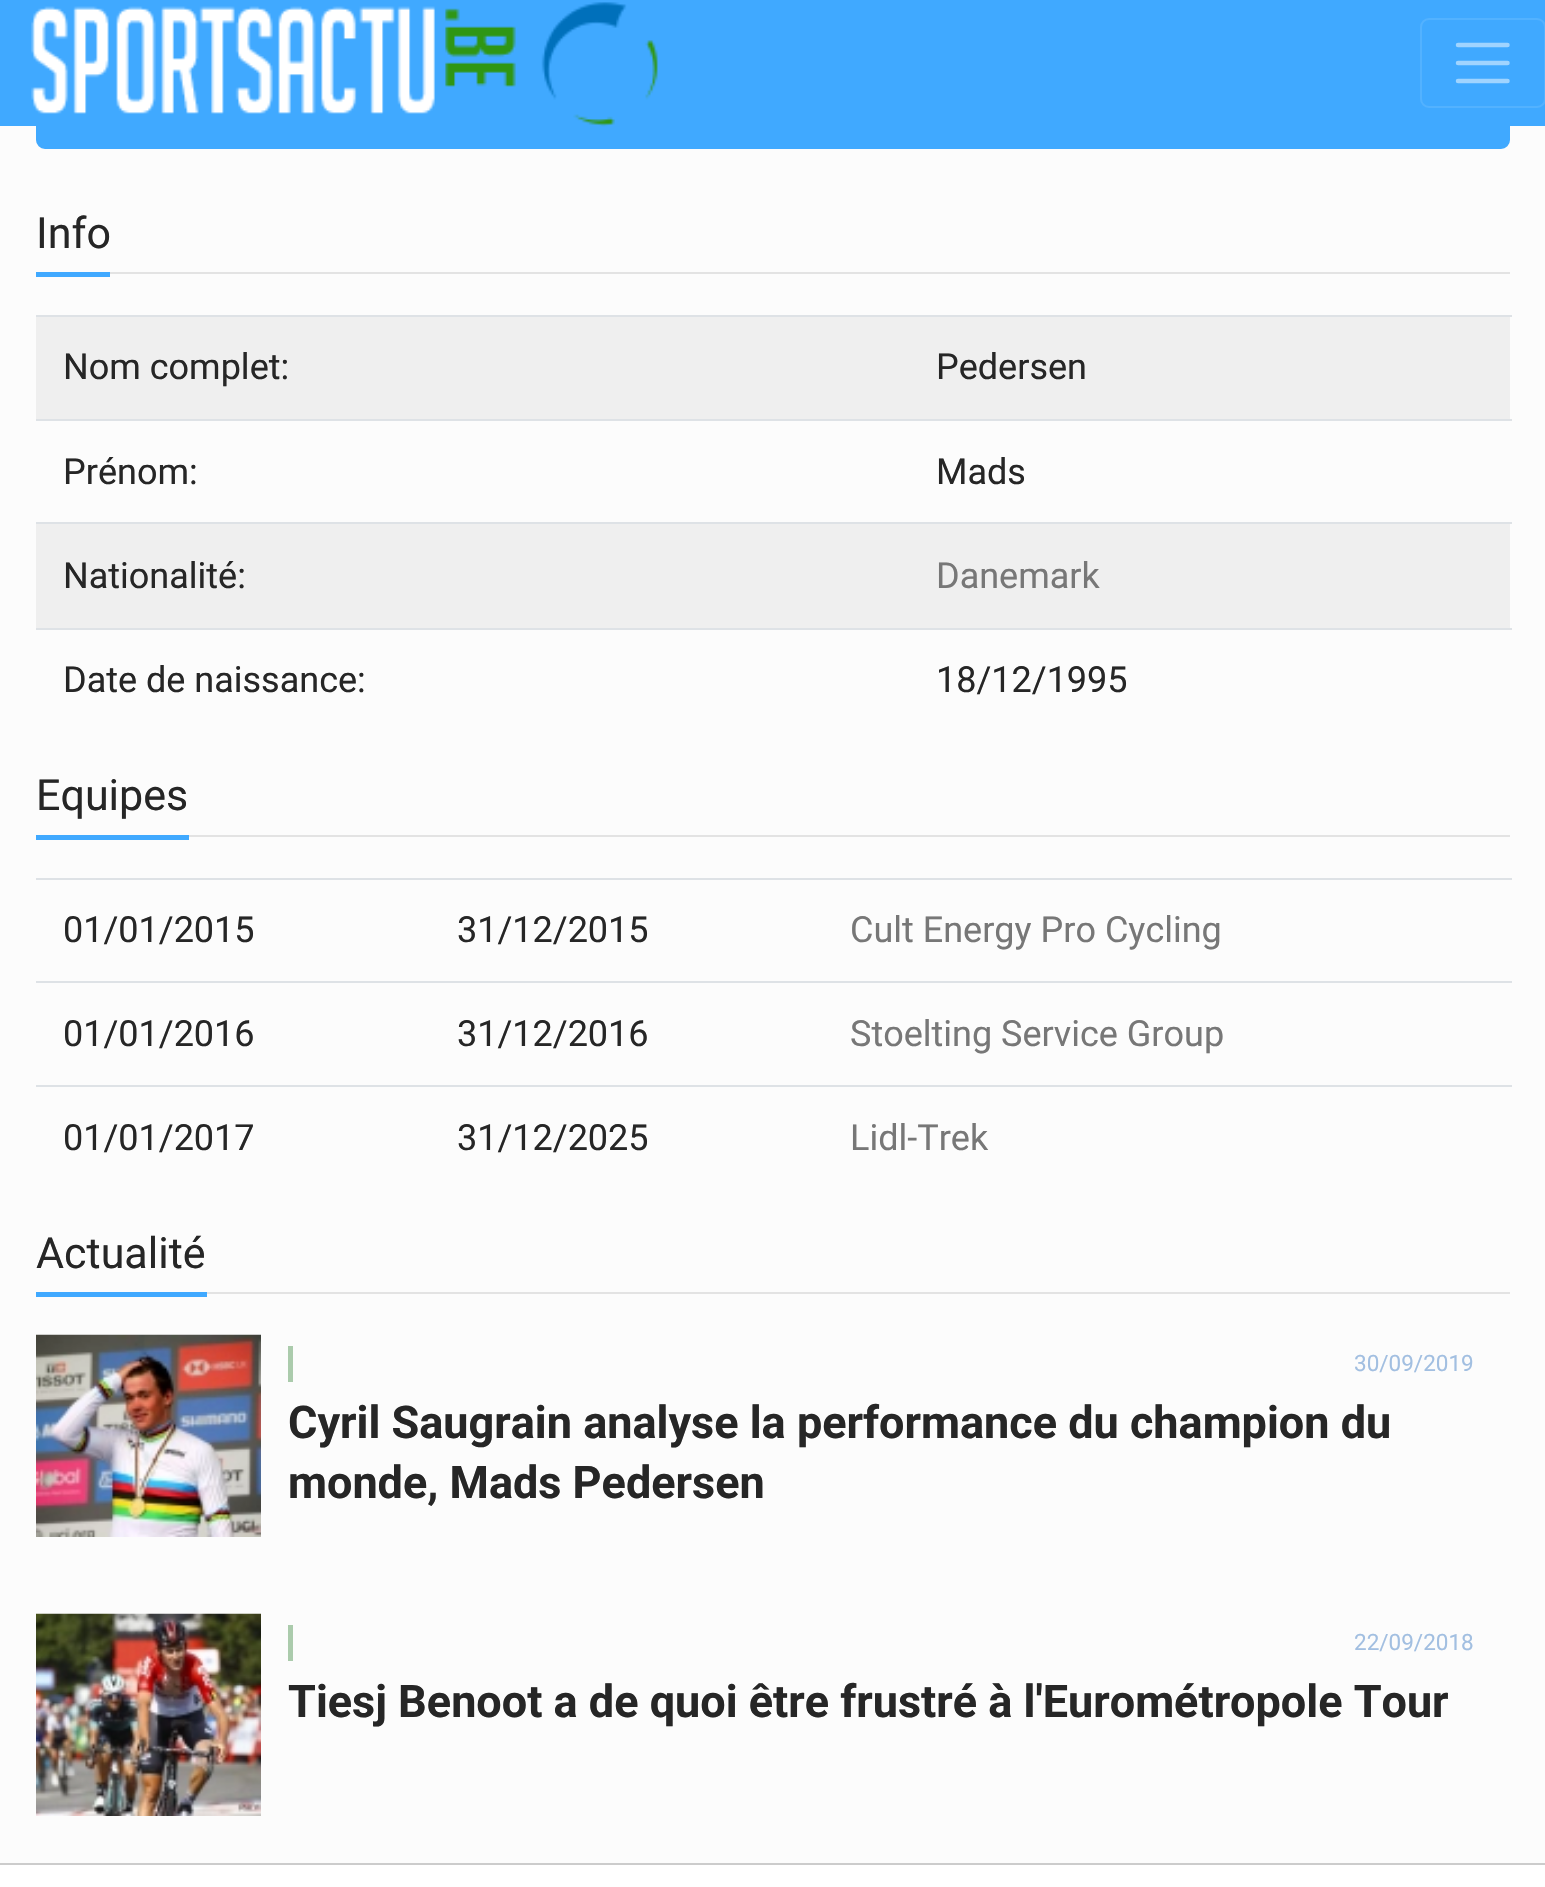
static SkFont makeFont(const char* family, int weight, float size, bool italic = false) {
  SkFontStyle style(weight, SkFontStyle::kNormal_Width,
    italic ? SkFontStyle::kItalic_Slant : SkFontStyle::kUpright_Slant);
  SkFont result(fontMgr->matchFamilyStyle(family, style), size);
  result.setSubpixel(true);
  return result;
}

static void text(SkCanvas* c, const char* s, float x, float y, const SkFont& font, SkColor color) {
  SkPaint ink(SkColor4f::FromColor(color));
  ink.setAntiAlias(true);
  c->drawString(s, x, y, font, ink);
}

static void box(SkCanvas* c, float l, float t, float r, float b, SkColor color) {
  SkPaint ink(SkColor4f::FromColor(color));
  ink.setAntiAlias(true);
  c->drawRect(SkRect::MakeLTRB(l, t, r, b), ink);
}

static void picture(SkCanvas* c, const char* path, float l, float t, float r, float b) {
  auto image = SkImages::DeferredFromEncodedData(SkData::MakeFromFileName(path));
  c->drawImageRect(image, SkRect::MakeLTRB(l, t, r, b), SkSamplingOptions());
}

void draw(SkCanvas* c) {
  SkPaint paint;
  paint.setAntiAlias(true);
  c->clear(0xfffcfcfc);
  paint.setColor(0xff40a9ff);
  c->drawRoundRect(SkRect::MakeLTRB(37, 64, 1509, 148), 8, 8, paint);
  paint.setStyle(SkPaint::kStroke_Style);
  paint.setStrokeWidth(2);
  c->drawRoundRect(SkRect::MakeLTRB(37, 64, 1509, 148), 8, 8, paint);
  box(c, 0, 0, 1545, 126, 0xff40a9ff);
  picture(c, "img_01.png", 31, 2, 658, 127);
  paint.setColor(0xff53b2ff);
  c->drawRoundRect(SkRect::MakeLTRB(1421, 19, 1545, 107), 8, 8, paint);
  paint.setStrokeWidth(4.5f);
  paint.setStrokeCap(SkPaint::kRound_Cap);
  paint.setColor(0xffa0d4ff);
  c->drawPath(SkPathBuilder().moveTo(1458, 45).lineTo(1507.5f, 45).moveTo(1458, 63).lineTo(1507.5f, 63).moveTo(1458, 81).lineTo(1507.5f, 81).detach(), paint);
  box(c, 110, 272, 1510, 274, 0xffe3e3e3);
  box(c, 36, 272, 110, 277, 0xff40a9ff);
  SkFont face1 = makeFont("Roboto", 400, 43);
  text(c, "Info", 36, 248, face1, 0xff262626);
  box(c, 36, 317, 1510, 419, 0xffefefef);
  SkFont face2 = makeFont("Roboto", 400, 36);
  text(c, "Nom complet:", 63, 379, face2, 0xff262626);
  box(c, 36, 315, 1512, 317, 0xffdee2e6);
  text(c, "Pedersen", 936, 379, face2, 0xff262626);
  text(c, "Prénom:", 63, 484, face2, 0xff262626);
  box(c, 36, 419, 1512, 421, 0xffdee2e6);
  text(c, "Mads", 936, 484, face2, 0xff262626);
  box(c, 36, 524, 1510, 628, 0xffefefef);
  text(c, "Nationalité:", 63, 588, face2, 0xff262626);
  box(c, 36, 522, 1512, 524, 0xffdee2e6);
  text(c, "Danemark", 936, 588, face2, 0xff777777);
  text(c, "Date de naissance:", 63, 692, face2, 0xff262626);
  box(c, 36, 628, 1512, 630, 0xffdee2e6);
  text(c, "18/12/1995", 936, 692, face2, 0xff262626);
  box(c, 189, 835, 1510, 837, 0xffe3e3e3);
  box(c, 36, 835, 189, 840, 0xff40a9ff);
  text(c, "Equipes", 36, 810, face1, 0xff262626);
  text(c, "01/01/2015", 63, 942, face2, 0xff262626);
  text(c, "31/12/2015", 457, 942, face2, 0xff262626);
  box(c, 36, 878, 1512, 880, 0xffdee2e6);
  text(c, "Cult Energy Pro Cycling", 850, 942, face2, 0xff777777);
  text(c, "01/01/2016", 63, 1046, face2, 0xff262626);
  text(c, "31/12/2016", 457, 1046, face2, 0xff262626);
  box(c, 36, 981, 1512, 983, 0xffdee2e6);
  text(c, "Stoelting Service Group", 850, 1046, face2, 0xff777777);
  text(c, "01/01/2017", 63, 1150, face2, 0xff262626);
  text(c, "31/12/2025", 457, 1150, face2, 0xff262626);
  box(c, 36, 1085, 1512, 1087, 0xffdee2e6);
  text(c, "Lidl-Trek", 850, 1150, face2, 0xff777777);
  box(c, 207, 1292, 1510, 1294, 0xffe3e3e3);
  box(c, 36, 1292, 207, 1297, 0xff40a9ff);
  text(c, "Actualité", 36, 1268, face1, 0xff262626);
  picture(c, "img_02.png", 36, 1334, 261, 1537);
  box(c, 288, 1346, 293, 1382, 0xffabcbac);
  SkFont face3 = makeFont("Roboto", 400, 22.5f);
  text(c, "30/09/2019", 1354, 1371, face3, 0xffa2bfe1);
  SkFont face4 = makeFont("Roboto", 700, 45);
  text(c, "Cyril Saugrain analyse la performance du champion du", 288, 1438, face4, 0xff262626);
  text(c, "monde, Mads Pedersen", 288, 1498, face4, 0xff262626);
  picture(c, "img_03.png", 36, 1613, 261, 1816);
  box(c, 288, 1625, 293, 1661, 0xffabcbac);
  text(c, "22/09/2018", 1354, 1650, face3, 0xffa2bfe1);
  text(c, "Tiesj Benoot a de quoi être frustré à l'Eurométropole Tour", 288, 1717, face4, 0xff262626);
  box(c, 0, 1865, 1545, 1887, 0xffffffff);
  box(c, 0, 1863, 1545, 1865, 0xffcccccc);
}
